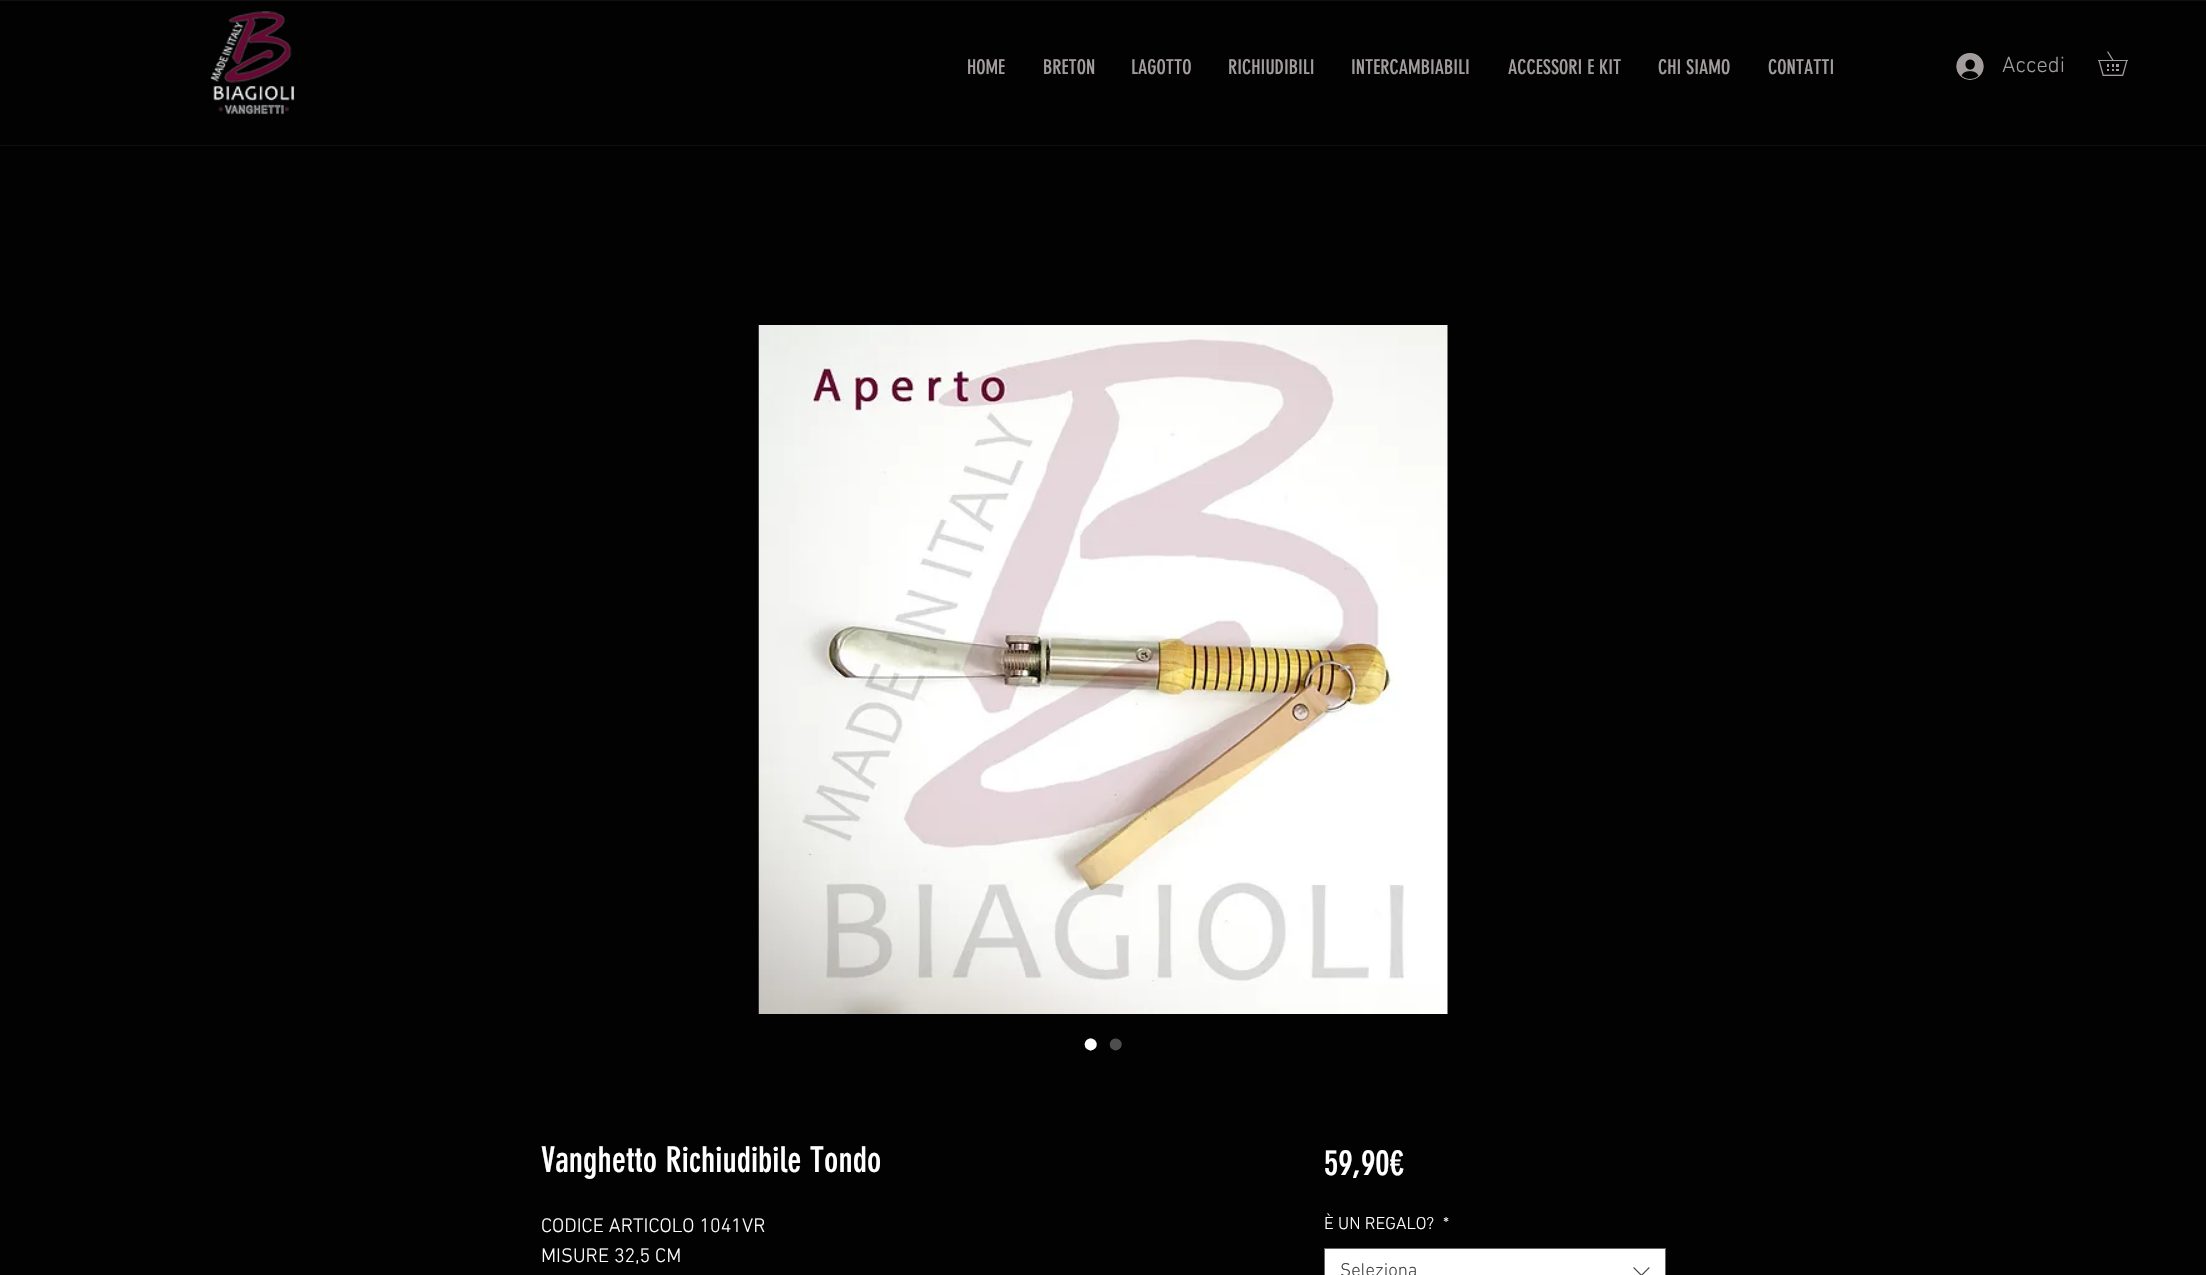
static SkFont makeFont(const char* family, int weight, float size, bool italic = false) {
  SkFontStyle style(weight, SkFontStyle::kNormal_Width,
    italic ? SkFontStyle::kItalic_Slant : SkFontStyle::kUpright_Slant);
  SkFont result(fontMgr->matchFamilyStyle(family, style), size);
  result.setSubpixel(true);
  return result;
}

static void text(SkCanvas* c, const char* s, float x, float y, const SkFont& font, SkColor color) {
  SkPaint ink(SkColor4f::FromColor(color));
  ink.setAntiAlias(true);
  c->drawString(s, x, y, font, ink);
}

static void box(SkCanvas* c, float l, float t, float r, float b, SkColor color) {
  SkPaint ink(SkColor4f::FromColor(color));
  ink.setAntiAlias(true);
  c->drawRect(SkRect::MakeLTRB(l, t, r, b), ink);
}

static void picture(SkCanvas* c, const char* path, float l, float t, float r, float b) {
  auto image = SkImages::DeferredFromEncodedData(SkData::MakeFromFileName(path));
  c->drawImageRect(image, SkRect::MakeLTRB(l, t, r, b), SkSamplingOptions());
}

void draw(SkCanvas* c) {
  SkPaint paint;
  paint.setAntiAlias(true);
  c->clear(0xff020202);
  box(c, 0, 0, 2206, 146, 0xff101010);
  box(c, 0, 1, 2206, 145, 0xff020202);
  picture(c, "img_01.png", 210, 11, 295, 115);
  SkFont face1 = makeFont("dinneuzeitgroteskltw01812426", 400, 20);
  text(c, "HOME", 967, 74, face1, 0xffa29c9c);
  text(c, "BRETON", 1043, 74, face1, 0xffa29c9c);
  text(c, "LAGOTTO", 1131, 74, face1, 0xffa29c9c);
  text(c, "RICHIUDIBILI", 1228, 74, face1, 0xffa29c9c);
  text(c, "INTERCAMBIABILI", 1351, 74, face1, 0xffa29c9c);
  text(c, "ACCESSORI E KIT", 1508, 74, face1, 0xffa29c9c);
  text(c, "CHI SIAMO", 1658, 74, face1, 0xffa29c9c);
  text(c, "CONTATTI", 1768, 74, face1, 0xffa29c9c);
  picture(c, "img_02.png", 1956, 53, 1984, 80);
  SkFont face2 = makeFont("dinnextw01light", 300, 22.5f);
  text(c, "Accedi", 2002, 72, face2, 0xffa29c9c);
  picture(c, "img_03.png", 2098, 51, 2128, 76);
  picture(c, "img_04.png", 758, 325, 1448, 1014);
  SkFont face3 = makeFont("Liberation Sans", 400, 44);
  text(c, "•", 1083, 1059, face3, 0xffffffff);
  text(c, "•", 1108, 1059, face3, 0xff4e4e4e);
  SkFont face4 = makeFont("dinneuzeitgroteskltw01812426", 400, 35);
  text(c, "Vanghetto Richiudibile Tondo", 541, 1172, face4, 0xffffffff);
  SkFont face5 = makeFont("dinnextw01light", 300, 20);
  text(c, "CODICE ARTICOLO 1041VR", 541, 1232, face5, 0xffffffff);
  text(c, "MISURE 32,5 CM", 541, 1262, face5, 0xffffffff);
  text(c, "59,90€", 1324, 1175, face4, 0xffffffff);
  SkFont face6 = makeFont("dinnextw01light", 300, 17.5f);
  text(c, "È UN REGALO?", 1324, 1229, face6, 0xffffffff);
  text(c, "*", 1443, 1229, face6, 0xffffffff);
  paint.setColor(0xffffffff);
  c->drawRect(SkRect::MakeLTRB(1324.5f, 1248.5f, 1665.5f, 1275.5f), paint);
  paint.setStyle(SkPaint::kStroke_Style);
  paint.setStrokeWidth(1);
  paint.setColor(0xff666666);
  c->drawRect(SkRect::MakeLTRB(1324.5f, 1248.5f, 1665.5f, 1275.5f), paint);
  SkFont face7 = makeFont("dinnextw01light", 300, 18.75f);
  text(c, "Seleziona", 1340, 1276, face7, 0xff444444);
  picture(c, "img_05.png", 1633, 1267, 1650, 1275);
}
